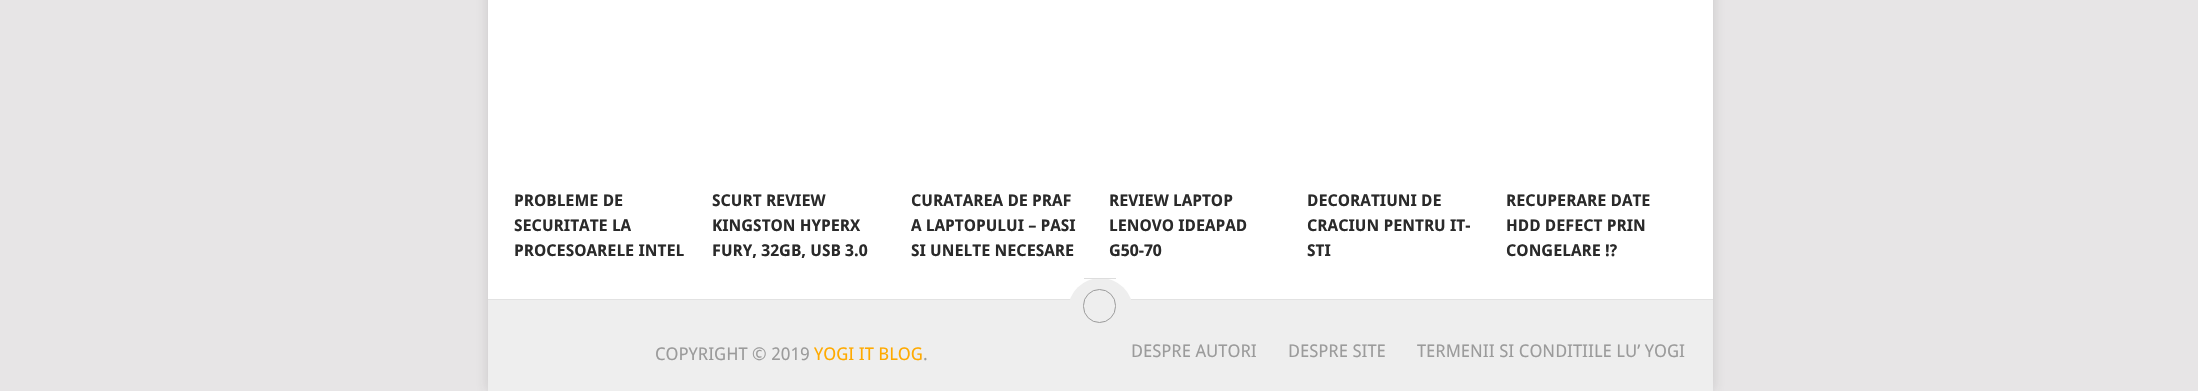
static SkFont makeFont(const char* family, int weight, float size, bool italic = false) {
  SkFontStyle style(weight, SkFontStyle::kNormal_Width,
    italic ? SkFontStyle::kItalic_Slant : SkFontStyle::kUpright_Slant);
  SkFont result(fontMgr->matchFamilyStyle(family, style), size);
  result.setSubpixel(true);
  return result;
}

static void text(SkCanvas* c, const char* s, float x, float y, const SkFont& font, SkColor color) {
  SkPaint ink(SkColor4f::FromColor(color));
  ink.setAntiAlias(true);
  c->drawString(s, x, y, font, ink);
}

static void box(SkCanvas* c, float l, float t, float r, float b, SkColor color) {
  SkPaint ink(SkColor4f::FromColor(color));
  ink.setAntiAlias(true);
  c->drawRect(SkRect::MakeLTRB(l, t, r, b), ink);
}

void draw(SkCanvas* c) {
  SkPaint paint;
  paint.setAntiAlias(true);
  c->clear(0xffe7e5e6);
  paint.setColor(0x2b323232);
  paint.setMaskFilter(SkMaskFilter::MakeBlur(kNormal_SkBlurStyle, 6));
  c->drawRect(SkRect::MakeLTRB(488, -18, 1713, 391), paint);
  paint.setMaskFilter(nullptr);
  box(c, 488, 0, 1713, 299, 0xffffffff);
  SkFont face1 = makeFont("Droid Sans", 700, 16.25f);
  text(c, "PROBLEME DE", 514, 206, face1, 0xff2a2a2a);
  text(c, "SECURITATE LA", 514, 231, face1, 0xff2a2a2a);
  text(c, "PROCESOARELE INTEL", 514, 256, face1, 0xff2a2a2a);
  text(c, "SCURT REVIEW", 712, 206, face1, 0xff2a2a2a);
  text(c, "KINGSTON HYPERX", 712, 231, face1, 0xff2a2a2a);
  text(c, "FURY, 32GB, USB 3.0", 712, 256, face1, 0xff2a2a2a);
  text(c, "CURATAREA DE PRAF", 911, 206, face1, 0xff2a2a2a);
  text(c, "A LAPTOPULUI – PASI", 911, 231, face1, 0xff2a2a2a);
  text(c, "SI UNELTE NECESARE", 911, 256, face1, 0xff2a2a2a);
  text(c, "REVIEW LAPTOP", 1109, 206, face1, 0xff2a2a2a);
  text(c, "LENOVO IDEAPAD", 1109, 231, face1, 0xff2a2a2a);
  text(c, "G50-70", 1109, 256, face1, 0xff2a2a2a);
  text(c, "DECORATIUNI DE", 1307, 206, face1, 0xff2a2a2a);
  text(c, "CRACIUN PENTRU IT-", 1307, 231, face1, 0xff2a2a2a);
  text(c, "STI", 1307, 256, face1, 0xff2a2a2a);
  text(c, "RECUPERARE DATE", 1506, 206, face1, 0xff2a2a2a);
  text(c, "HDD DEFECT PRIN", 1506, 231, face1, 0xff2a2a2a);
  text(c, "CONGELARE !?", 1506, 256, face1, 0xff2a2a2a);
  box(c, 488, 300, 1713, 391, 0xffeeeeee);
  box(c, 488, 299, 1713, 300, 0xffe2e2e2);
  paint.setColor(0xffeeeeee);
  c->drawCircle(1100.5f, 310.5f, 32.5f, paint);
  box(c, 1084, 278, 1116, 279, 0xffdddddd);
  paint.setStyle(SkPaint::kStroke_Style);
  paint.setStrokeWidth(1);
  paint.setColor(0xff9b9b9b);
  c->drawRoundRect(SkRect::MakeLTRB(1083.5f, 289.5f, 1115.5f, 322.5f), 16, 16, paint);
  SkFont face2 = makeFont("Droid Sans", 400, 17.5f);
  text(c, "COPYRIGHT © 2019", 655, 360, face2, 0xff9b9b9b);
  text(c, "YOGI IT BLOG", 814, 360, face2, 0xffffaa00);
  text(c, ".", 923, 360, face2, 0xff9b9b9b);
  text(c, "DESPRE AUTORI", 1131, 357, face2, 0xff9b9b9b);
  text(c, "DESPRE SITE", 1288, 357, face2, 0xff9b9b9b);
  text(c, "TERMENII SI CONDITIILE LU’ YOGI", 1417, 357, face2, 0xff9b9b9b);
}
